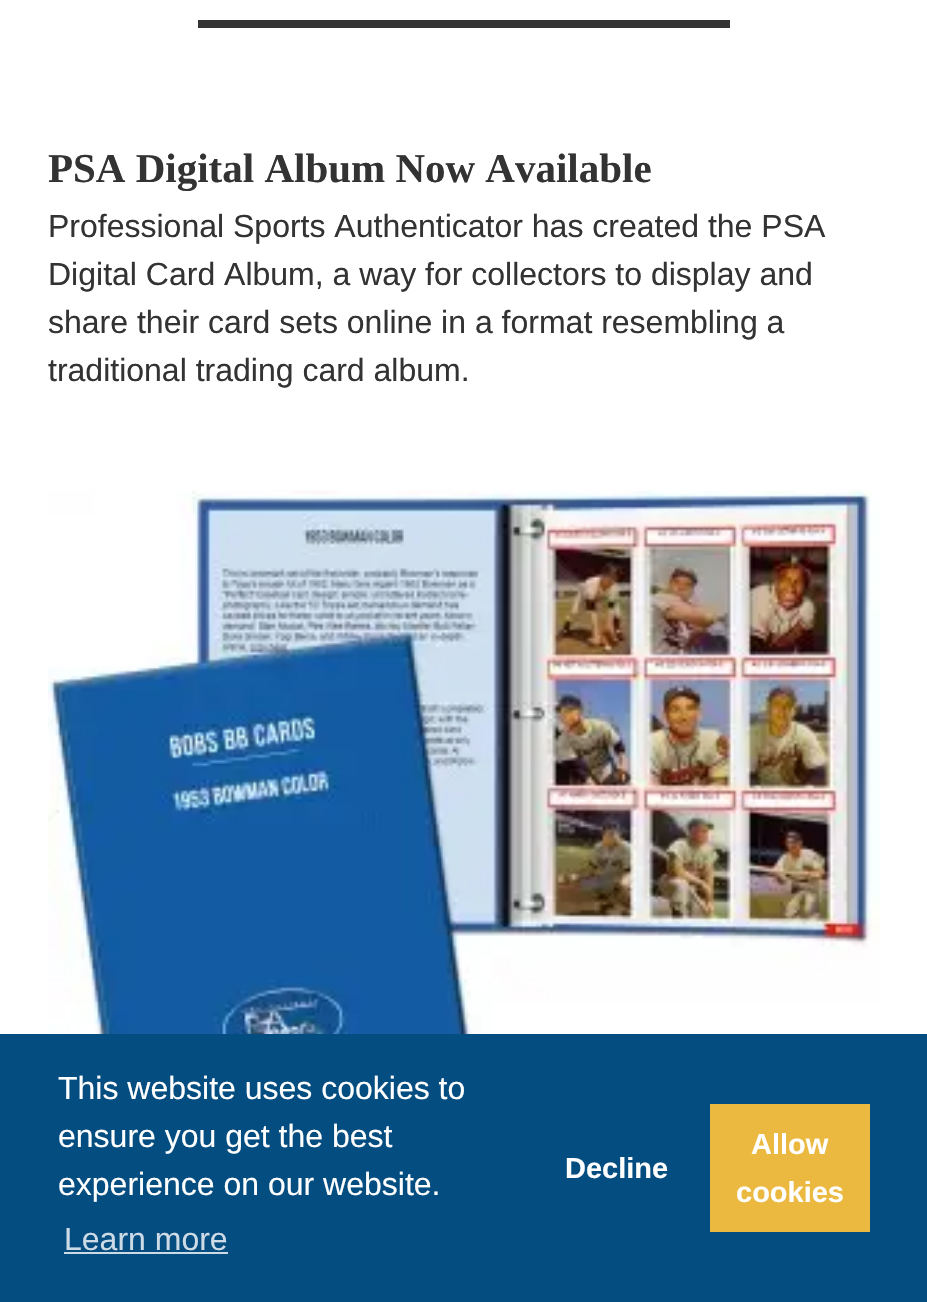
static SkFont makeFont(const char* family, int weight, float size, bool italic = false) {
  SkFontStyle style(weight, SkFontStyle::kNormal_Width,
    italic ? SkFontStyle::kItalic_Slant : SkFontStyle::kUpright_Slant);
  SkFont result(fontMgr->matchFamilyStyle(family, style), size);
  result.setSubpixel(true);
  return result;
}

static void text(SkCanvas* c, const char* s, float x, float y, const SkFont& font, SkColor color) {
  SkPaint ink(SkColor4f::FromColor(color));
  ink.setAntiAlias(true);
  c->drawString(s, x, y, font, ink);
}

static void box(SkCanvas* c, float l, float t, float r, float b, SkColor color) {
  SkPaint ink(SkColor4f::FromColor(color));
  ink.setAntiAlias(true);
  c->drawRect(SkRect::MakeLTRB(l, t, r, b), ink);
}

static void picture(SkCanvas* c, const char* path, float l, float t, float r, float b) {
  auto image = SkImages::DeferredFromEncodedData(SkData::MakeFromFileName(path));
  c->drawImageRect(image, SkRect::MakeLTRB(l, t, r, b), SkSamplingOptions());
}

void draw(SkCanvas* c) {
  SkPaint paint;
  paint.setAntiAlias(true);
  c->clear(0xffffffff);
  box(c, 198, 20, 730, 28, 0xff333333);
  SkFont face1 = makeFont("Liberation Serif", 700, 41);
  text(c, "PSA Digital Album Now Available", 48, 182, face1, 0xff333333);
  SkFont face2 = makeFont("Liberation Sans", 400, 32);
  text(c, "Professional Sports Authenticator has created the PSA", 48, 237, face2, 0xff333333);
  text(c, "Digital Card Album, a way for collectors to display and", 48, 285, face2, 0xff333333);
  text(c, "share their card sets online in a format resembling a", 48, 333, face2, 0xff333333);
  text(c, "traditional trading card album.", 48, 381, face2, 0xff333333);
  picture(c, "img_01.png", 48, 490, 880, 1034);
  box(c, 0, 1034, 927, 1302, 0xff044d80);
  text(c, "This website uses cookies to", 58, 1099, face2, 0xffffffff);
  text(c, "ensure you get the best", 58, 1147, face2, 0xffffffff);
  text(c, "experience on our website.", 58, 1195, face2, 0xffffffff);
  text(c, "Learn more", 64, 1250, face2, 0xffcddbe6);
  box(c, 64, 1252, 228, 1254, 0xffcddbe6);
  SkFont face3 = makeFont("Liberation Sans", 700, 29);
  text(c, "Decline", 565, 1178, face3, 0xffffffff);
  box(c, 710, 1104, 870, 1232, 0xffecb940);
  text(c, "Allow", 751, 1154, face3, 0xffffffff);
  text(c, "cookies", 736, 1202, face3, 0xffffffff);
}
